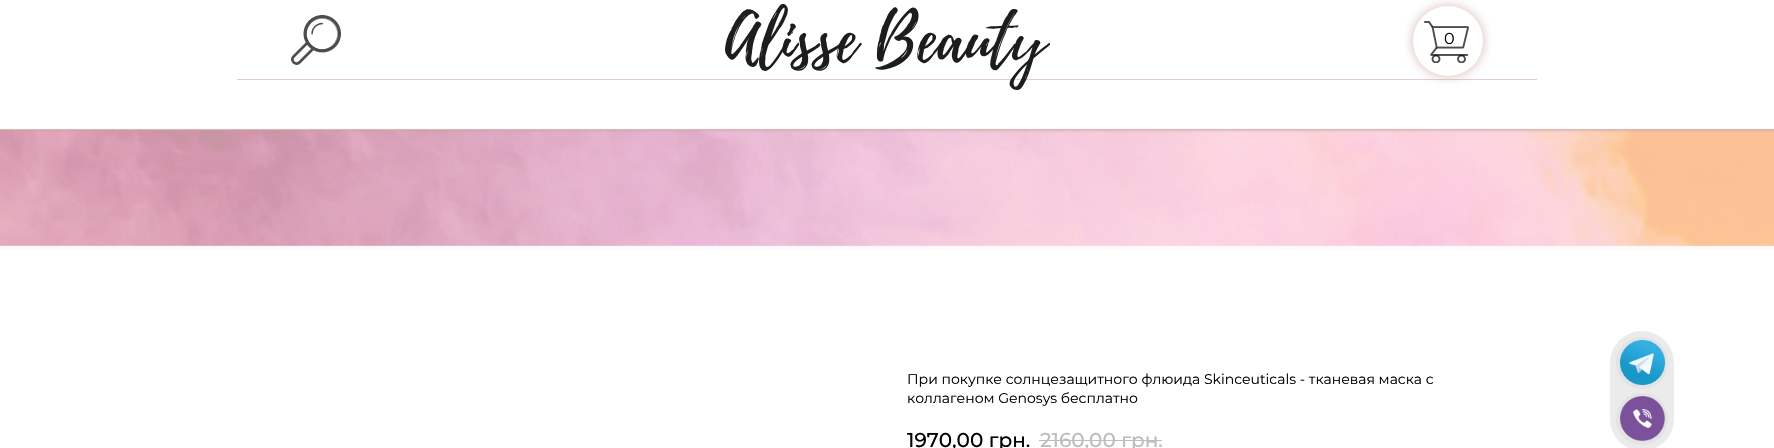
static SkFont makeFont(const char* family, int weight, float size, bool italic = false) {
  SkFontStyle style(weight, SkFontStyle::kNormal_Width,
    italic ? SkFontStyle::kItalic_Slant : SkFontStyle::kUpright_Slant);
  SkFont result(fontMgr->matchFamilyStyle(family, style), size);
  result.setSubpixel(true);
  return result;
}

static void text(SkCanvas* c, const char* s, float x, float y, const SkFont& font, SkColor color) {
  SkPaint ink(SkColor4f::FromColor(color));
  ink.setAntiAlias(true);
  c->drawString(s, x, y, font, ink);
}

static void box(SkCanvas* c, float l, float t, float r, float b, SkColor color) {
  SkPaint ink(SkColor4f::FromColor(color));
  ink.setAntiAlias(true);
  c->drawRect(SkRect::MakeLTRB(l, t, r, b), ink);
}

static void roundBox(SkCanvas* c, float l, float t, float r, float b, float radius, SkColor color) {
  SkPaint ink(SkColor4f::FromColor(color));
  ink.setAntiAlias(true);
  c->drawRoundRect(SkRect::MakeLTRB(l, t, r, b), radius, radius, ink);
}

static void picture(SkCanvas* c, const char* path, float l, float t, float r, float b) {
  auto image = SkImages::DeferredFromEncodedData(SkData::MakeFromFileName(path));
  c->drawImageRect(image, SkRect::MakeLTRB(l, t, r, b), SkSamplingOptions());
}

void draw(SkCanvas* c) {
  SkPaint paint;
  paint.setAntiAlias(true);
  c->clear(0xffffffff);
  picture(c, "img_01.png", 291, 15, 341, 65);
  paint.setColor(0x80c59b99);
  paint.setMaskFilter(SkMaskFilter::MakeBlur(kNormal_SkBlurStyle, 5));
  c->drawRoundRect(SkRect::MakeLTRB(1411, 4, 1485, 78), 37, 37, paint);
  paint.setMaskFilter(nullptr);
  box(c, 237, 79, 1537, 80, 0x80c59b99);
  picture(c, "img_02.png", 725, 4, 1050, 90);
  paint.setColor(0xffffffff);
  c->drawCircle(1448, 41, 35, paint);
  picture(c, "img_03.png", 1424, 21, 1469, 63);
  SkFont face1 = makeFont("Montserrat", 400, 16);
  text(c, "0", 1444, 44, face1, 0xff000000);
  picture(c, "img_04.png", 0, 130, 1774, 250);
  paint.setColor(0xb3c59b99);
  paint.setMaskFilter(SkMaskFilter::MakeBlur(kNormal_SkBlurStyle, 1));
  c->drawRect(SkRect::MakeLTRB(-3, 130, 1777, 131), paint);
  paint.setMaskFilter(nullptr);
  box(c, 0, 129, 1774, 130, 0xffd6b9b8);
  roundBox(c, 1610, 331, 1674, 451, 32, 0xffebebeb);
  paint.setColor(0xffe3e3e3);
  c->drawCircle(1642, 363, 26, paint);
  picture(c, "img_05.png", 1620, 340, 1665, 385);
  c->drawCircle(1642, 419, 26, paint);
  picture(c, "img_06.png", 1620, 396, 1665, 441);
  SkFont face2 = makeFont("Montserrat", 400, 14);
  text(c, "При покупке солнцезащитного флюида Skinceuticals - тканевая маска с", 907, 384, face2, 0xff000000);
  text(c, "коллагеном Genosys бесплатно", 907, 403, face2, 0xff000000);
  SkFont face3 = makeFont("Montserrat", 500, 20);
  text(c, "1970,00 грн.", 907, 447, face3, 0xff000000);
  text(c, "2160,00 грн.", 1040, 447, face3, 0xffbdbdbd);
  box(c, 1039, 440, 1162, 441, 0xffbdbdbd);
}
